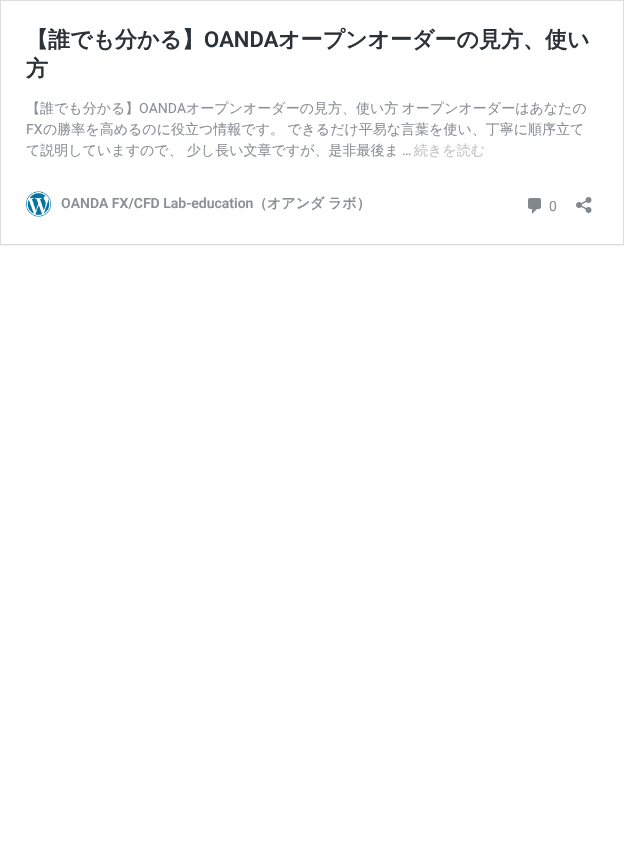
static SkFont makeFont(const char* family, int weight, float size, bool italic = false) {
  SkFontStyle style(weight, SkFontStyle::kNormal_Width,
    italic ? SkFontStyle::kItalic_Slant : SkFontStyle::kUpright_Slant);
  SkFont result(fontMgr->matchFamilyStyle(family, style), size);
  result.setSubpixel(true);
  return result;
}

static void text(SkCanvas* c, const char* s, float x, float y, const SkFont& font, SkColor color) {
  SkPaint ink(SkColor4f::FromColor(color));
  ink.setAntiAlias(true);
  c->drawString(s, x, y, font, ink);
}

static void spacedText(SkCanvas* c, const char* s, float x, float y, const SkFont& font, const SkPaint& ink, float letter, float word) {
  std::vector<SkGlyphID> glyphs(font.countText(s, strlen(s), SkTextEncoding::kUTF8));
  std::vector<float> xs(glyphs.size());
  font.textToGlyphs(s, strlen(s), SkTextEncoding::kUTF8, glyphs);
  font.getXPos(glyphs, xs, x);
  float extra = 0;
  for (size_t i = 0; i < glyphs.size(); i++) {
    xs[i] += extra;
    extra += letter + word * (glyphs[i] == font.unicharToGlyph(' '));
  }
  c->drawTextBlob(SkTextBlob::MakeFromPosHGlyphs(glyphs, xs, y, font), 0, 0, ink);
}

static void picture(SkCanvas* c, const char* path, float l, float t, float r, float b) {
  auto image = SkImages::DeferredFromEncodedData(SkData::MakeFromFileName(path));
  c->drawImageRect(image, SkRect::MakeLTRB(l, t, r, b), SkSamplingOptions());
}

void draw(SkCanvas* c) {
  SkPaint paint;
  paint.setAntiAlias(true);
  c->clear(0xffffffff);
  c->save();
  c->clipRect(SkRect::MakeLTRB(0, 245, 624, 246));
  paint.setColor(0x0d000000);
  paint.setMaskFilter(SkMaskFilter::MakeBlur(kNormal_SkBlurStyle, 0.5f));
  c->drawRect(SkRect::MakeLTRB(0, 1, 624, 246), paint);
  paint.setMaskFilter(nullptr);
  c->restore();
  paint.setStyle(SkPaint::kStroke_Style);
  paint.setStrokeWidth(1);
  paint.setColor(0xffdcdcde);
  c->drawRect(SkRect::MakeLTRB(0.5f, 0.5f, 623.5f, 244.5f), paint);
  SkFont face1 = makeFont("WenQuanYi Zen Hei", 700, 22);
  text(c, "【誰でも分かる】", 26, 47, face1, 0xff2c3338);
  SkFont face2 = makeFont("Roboto", 600, 22);
  text(c, "OANDA", 204, 47, face2, 0xff2c3338);
  text(c, "オープンオーダーの見方、使い", 278, 47, face1, 0xff2c3338);
  text(c, "方", 26, 76, face1, 0xff2c3338);
  SkFont face3 = makeFont("WenQuanYi Zen Hei", 500, 14);
  text(c, "【誰でも分かる】", 26, 113, face3, 0xff8c8f94);
  SkFont face4 = makeFont("Roboto", 400, 14);
  text(c, "OANDA", 139, 113, face4, 0xff8c8f94);
  paint.setStyle(SkPaint::kFill_Style);
  paint.setColor(0xff8c8f94);
  spacedText(c, "オープンオーダーの見方、使い方 オープンオーダーはあなたの", 186, 113, face3, paint, 0, -1);
  text(c, "FX", 26, 134, face4, 0xff8c8f94);
  spacedText(c, "の勝率を高めるのに役立つ情報です。 できるだけ平易な言葉を使い、丁寧に順序立て", 43, 134, face3, paint, 0, -1);
  text(c, "て説明していますので、 少し長い文章ですが、是非最後ま", 26, 155, face3, 0xff8c8f94);
  text(c, "…", 402, 155, face4, 0xff8c8f94);
  text(c, "続きを読む", 414, 155, face3, 0xffc3c4c7);
  picture(c, "img_01.png", 26, 191, 51, 217);
  SkFont face5 = makeFont("Roboto", 600, 14);
  text(c, "OANDA FX/CFD Lab-education", 61, 208, face5, 0xff8c8f94);
  SkFont face6 = makeFont("WenQuanYi Zen Hei", 700, 14);
  text(c, "（オアンダ", 253, 208, face6, 0xff8c8f94);
  text(c, "ラボ）", 328, 208, face6, 0xff8c8f94);
  picture(c, "img_02.png", 528, 198, 541, 214);
  text(c, "0", 549, 211, face4, 0xff8c8f94);
  picture(c, "img_03.png", 576, 197, 592, 213);
}
